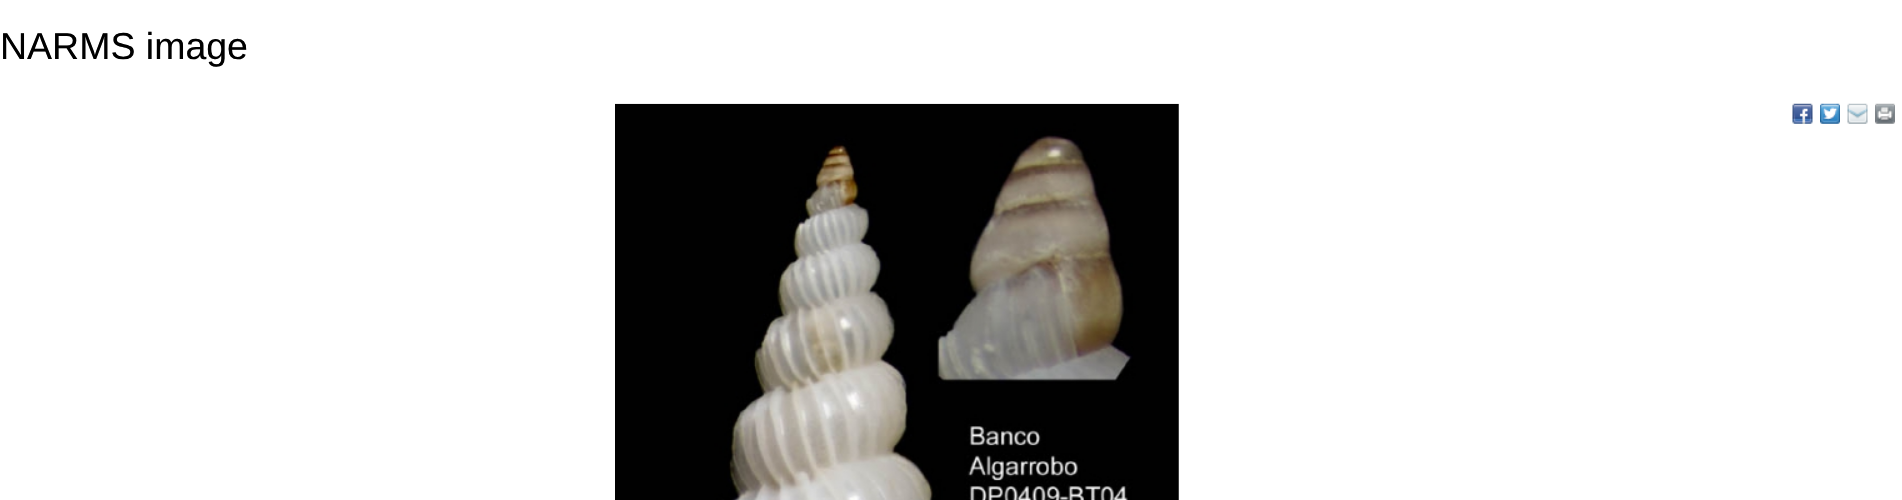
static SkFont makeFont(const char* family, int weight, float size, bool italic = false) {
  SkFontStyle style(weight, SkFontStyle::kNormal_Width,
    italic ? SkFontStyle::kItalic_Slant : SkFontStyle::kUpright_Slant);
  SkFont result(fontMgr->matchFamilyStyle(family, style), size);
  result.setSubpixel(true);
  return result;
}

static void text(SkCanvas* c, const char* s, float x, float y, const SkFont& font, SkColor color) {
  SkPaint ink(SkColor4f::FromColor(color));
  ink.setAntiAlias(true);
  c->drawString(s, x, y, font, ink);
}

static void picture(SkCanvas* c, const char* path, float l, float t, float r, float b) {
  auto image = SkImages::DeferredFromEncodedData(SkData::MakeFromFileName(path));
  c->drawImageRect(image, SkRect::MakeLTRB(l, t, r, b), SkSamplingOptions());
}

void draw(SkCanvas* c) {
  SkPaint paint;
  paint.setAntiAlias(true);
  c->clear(0xffffffff);
  SkFont face1 = makeFont("Liberation Sans", 400, 37.5f);
  text(c, "NARMS image", 0, 59, face1, 0xff000000);
  picture(c, "img_01.png", 615, 103, 1179, 500);
  picture(c, "img_02.png", 1792, 103, 1813, 124);
  picture(c, "img_03.png", 1820, 103, 1840, 124);
  picture(c, "img_04.png", 1847, 103, 1868, 124);
  picture(c, "img_05.png", 1875, 103, 1895, 124);
}
